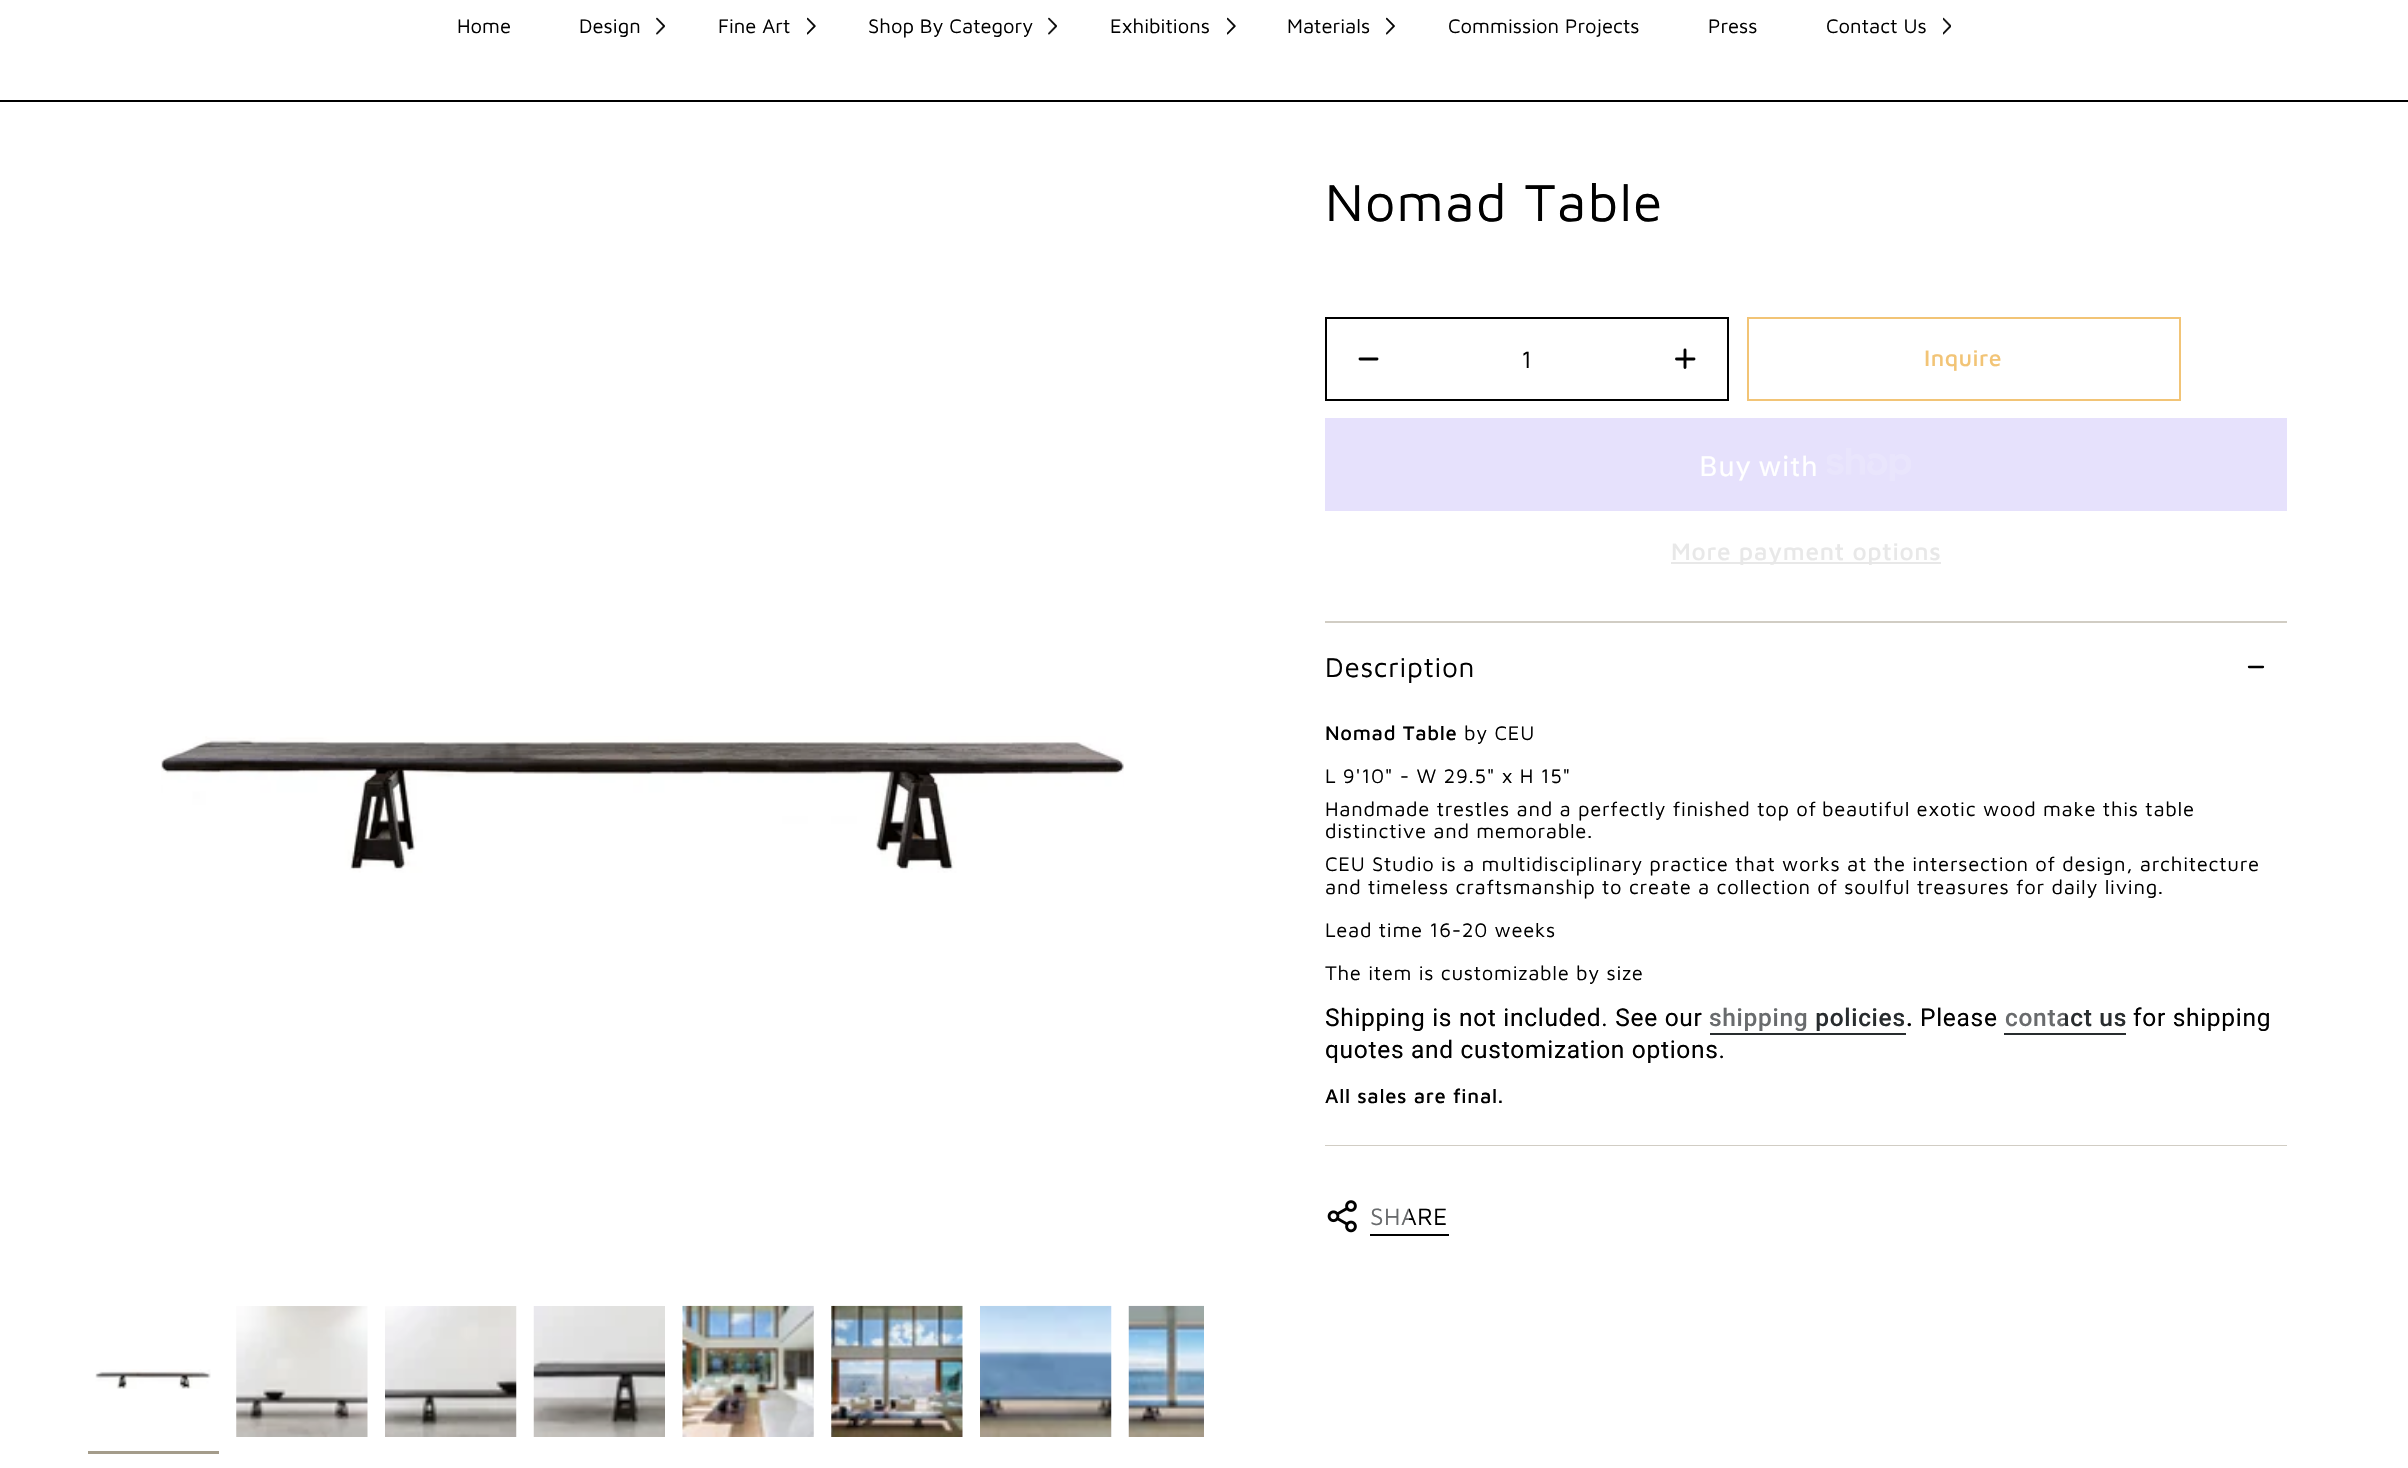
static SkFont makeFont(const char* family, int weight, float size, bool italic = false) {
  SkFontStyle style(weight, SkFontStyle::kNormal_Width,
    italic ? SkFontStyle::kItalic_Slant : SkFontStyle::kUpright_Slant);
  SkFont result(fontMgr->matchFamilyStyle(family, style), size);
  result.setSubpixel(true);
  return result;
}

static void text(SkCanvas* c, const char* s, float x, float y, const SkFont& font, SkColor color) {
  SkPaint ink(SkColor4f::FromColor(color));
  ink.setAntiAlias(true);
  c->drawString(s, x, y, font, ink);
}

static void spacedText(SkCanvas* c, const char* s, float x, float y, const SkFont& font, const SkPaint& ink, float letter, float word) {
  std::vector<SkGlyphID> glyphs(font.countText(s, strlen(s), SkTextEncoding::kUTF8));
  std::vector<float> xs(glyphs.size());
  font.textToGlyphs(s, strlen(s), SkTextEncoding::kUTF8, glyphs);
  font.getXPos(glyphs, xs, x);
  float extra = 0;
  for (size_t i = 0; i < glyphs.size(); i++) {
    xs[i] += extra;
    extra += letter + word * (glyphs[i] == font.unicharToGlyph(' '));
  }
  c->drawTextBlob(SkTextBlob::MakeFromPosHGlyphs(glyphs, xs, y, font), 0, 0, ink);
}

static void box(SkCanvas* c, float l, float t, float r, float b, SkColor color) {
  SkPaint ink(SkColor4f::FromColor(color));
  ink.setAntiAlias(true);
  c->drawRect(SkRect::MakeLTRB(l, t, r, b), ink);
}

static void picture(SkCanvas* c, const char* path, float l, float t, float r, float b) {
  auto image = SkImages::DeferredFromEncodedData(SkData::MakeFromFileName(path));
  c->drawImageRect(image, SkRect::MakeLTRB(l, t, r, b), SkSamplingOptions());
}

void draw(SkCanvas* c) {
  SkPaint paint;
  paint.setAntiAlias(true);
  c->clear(0xffffffff);
  SkFont face1 = makeFont("Maven Pro", 400, 20.25f);
  text(c, "Home", 457, 33, face1, 0xff000000);
  text(c, "Design", 579, 33, face1, 0xff000000);
  picture(c, "img_01.png", 656, 17, 665, 35);
  text(c, "Fine Art", 718, 33, face1, 0xff000000);
  picture(c, "img_02.png", 807, 17, 816, 35);
  text(c, "Shop By Category", 868, 33, face1, 0xff000000);
  picture(c, "img_01.png", 1048, 17, 1057, 35);
  text(c, "Exhibitions", 1110, 33, face1, 0xff000000);
  picture(c, "img_02.png", 1227, 17, 1236, 35);
  text(c, "Materials", 1287, 33, face1, 0xff000000);
  picture(c, "img_03.png", 1386, 17, 1395, 35);
  text(c, "Commission Projects", 1448, 33, face1, 0xff000000);
  text(c, "Press", 1708, 33, face1, 0xff000000);
  text(c, "Contact Us", 1826, 33, face1, 0xff000000);
  picture(c, "img_04.png", 1943, 17, 1951, 35);
  box(c, 0, 100, 2408, 102, 0xff000000);
  picture(c, "img_05.png", 161, 736, 1124, 873);
  picture(c, "img_06.png", 95, 1369, 211, 1389);
  box(c, 88, 1451, 219, 1454, 0xffa49c8b);
  picture(c, "img_07.png", 236, 1306, 368, 1437);
  picture(c, "img_08.png", 385, 1306, 517, 1437);
  picture(c, "img_09.png", 533, 1306, 665, 1437);
  picture(c, "img_10.png", 682, 1305, 814, 1437);
  picture(c, "img_11.png", 831, 1305, 963, 1437);
  picture(c, "img_12.png", 980, 1305, 1112, 1437);
  picture(c, "img_13.png", 1128, 1305, 1204, 1437);
  SkFont face2 = makeFont("Maven Pro", 400, 53.5f);
  paint.setColor(0xff000000);
  spacedText(c, "Nomad Table", 1325, 221, face2, paint, 1.25f, 0);
  paint.setStyle(SkPaint::kStroke_Style);
  paint.setStrokeWidth(2);
  c->drawRect(SkRect::MakeLTRB(1326, 318, 1728, 400), paint);
  paint.setStrokeWidth(2.9f);
  paint.setStrokeCap(SkPaint::kRound_Cap);
  paint.setStrokeJoin(SkPaint::kRound_Join);
  c->drawPath(SkPathBuilder().moveTo(1360, 359).lineTo(1377, 359).detach(), paint);
  SkFont face3 = makeFont("Maven Pro", 400, 24.5f);
  paint.setStyle(SkPaint::kFill_Style);
  spacedText(c, "1", 1521, 368, face3, paint, 0.5f, 0);
  paint.setStyle(SkPaint::kStroke_Style);
  c->drawPath(SkPathBuilder().moveTo(1676.5f, 359).lineTo(1685, 359).moveTo(1694, 359).lineTo(1685, 359).moveTo(1685, 359).lineTo(1685, 350).moveTo(1685, 359).lineTo(1685, 367.5f).detach(), paint);
  paint.setStrokeWidth(2);
  paint.setStrokeCap(SkPaint::kButt_Cap);
  paint.setStrokeJoin(SkPaint::kMiter_Join);
  paint.setColor(0xfff2c476);
  c->drawRect(SkRect::MakeLTRB(1748, 318, 2180, 400), paint);
  SkFont face4 = makeFont("Maven Pro", 500, 23);
  paint.setStyle(SkPaint::kFill_Style);
  spacedText(c, "Inquire", 1924, 366, face4, paint, 0.5f, 0);
  box(c, 1325, 418, 2287, 511, 0xffe6e1fc);
  SkFont face5 = makeFont("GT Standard", 400, 28);
  paint.setColor(0xffffffff);
  spacedText(c, "Buy with", 1699, 476, face5, paint, 0.7f, 0);
  picture(c, "img_14.png", 1827, 448, 1911, 481);
  box(c, 1671, 562, 1941, 564, 0xffe8e8e8);
  SkFont face6 = makeFont("Maven Pro", 500, 24.5f);
  paint.setColor(0xffe8e8e8);
  spacedText(c, "More payment options", 1671, 560, face6, paint, 0.7f, 0);
  box(c, 1325, 621, 2287, 623, 0xffd1cdc4);
  box(c, 1325, 1145, 2287, 1146, 0xffd1cdc4);
  SkFont face7 = makeFont("Maven Pro", 400, 28);
  paint.setColor(0xff000000);
  spacedText(c, "Description", 1325, 677, face7, paint, 0.7f, 0);
  paint.setStyle(SkPaint::kStroke_Style);
  paint.setStrokeWidth(2.3f);
  paint.setStrokeCap(SkPaint::kRound_Cap);
  paint.setStrokeJoin(SkPaint::kRound_Join);
  c->drawPath(SkPathBuilder().moveTo(2249, 667).lineTo(2263, 667).detach(), paint);
  SkFont face8 = makeFont("Maven Pro", 500, 20.25f);
  paint.setStyle(SkPaint::kFill_Style);
  spacedText(c, "Nomad Table", 1325, 740, face8, paint, 0.7f, 0);
  spacedText(c, "by CEU", 1464, 740, face1, paint, 0.7f, 0);
  spacedText(c, "L 9'10\" - W 29.5\" x H 15\"", 1325, 783, face1, paint, 0.7f, 0);
  spacedText(c, "Handmade trestles and a perfectly finished top of", 1325, 816, face1, paint, 0.7f, 0);
  spacedText(c, "beautiful exotic wood make this table", 1822, 816, face1, paint, 0.7f, 0);
  spacedText(c, "distinctive and memorable.", 1325, 838, face1, paint, 0.7f, 0);
  spacedText(c, "CEU Studio is a multidisciplinary practice that works at the intersection of design, architecture", 1325, 871, face1, paint, 0.7f, 0);
  spacedText(c, "and timeless craftsmanship to create a collection of soulful treasures for daily living.", 1325, 894, face1, paint, 0.7f, 0);
  spacedText(c, "Lead time 16-20 weeks", 1325, 937, face1, paint, 0.7f, 0);
  spacedText(c, "The item is customizable by size", 1325, 980, face1, paint, 0.7f, 0);
  SkFont face9 = makeFont("Roboto", 400, 24.5f);
  spacedText(c, "Shipping is not included. See our", 1325, 1026, face9, paint, 0.7f, 0);
  SkFont face10 = makeFont("Roboto", 500, 24.5f);
  {
    const SkColor colors[] = {0xff696b6d, 0xff696b6d, 0xff282c2e, 0xff282c2e};
    const float stops[] = {0, 0.5f, 0.5f, 1};
    const SkPoint ends[] = {{1709, 1019}, {1906, 1019}};
    paint.setShader(SkGradientShader::MakeLinear(ends, colors, stops, 4, SkTileMode::kClamp));
    paint.setAlpha(255);
  }
  spacedText(c, "shipping policies", 1709, 1026, face10, paint, 0.7f, 0);
  box(c, 1710, 1033, 1906, 1035, 0xff282c2e);
  paint.setShader(nullptr);
  paint.setColor(0xff000000);
  spacedText(c, ".", 1906, 1026, face10, paint, 0.7f, 0);
  spacedText(c, "Please", 1920, 1026, face9, paint, 0.7f, 0);
  {
    const SkColor colors[] = {0xff696b6d, 0xff696b6d, 0xff282c2e, 0xff282c2e};
    const float stops[] = {0, 0.5f, 0.5f, 1};
    const SkPoint ends[] = {{2005, 1019}, {2126, 1019}};
    paint.setShader(SkGradientShader::MakeLinear(ends, colors, stops, 4, SkTileMode::kClamp));
    paint.setAlpha(255);
  }
  spacedText(c, "contact us", 2005, 1026, face10, paint, 0.7f, 0);
  box(c, 2004, 1033, 2126, 1035, 0xff282c2e);
  paint.setShader(nullptr);
  paint.setColor(0xff000000);
  spacedText(c, "for shipping", 2133, 1026, face9, paint, 0.7f, 0);
  spacedText(c, "quotes and customization options.", 1325, 1058, face9, paint, 0.7f, 0);
  spacedText(c, "All sales are final.", 1325, 1103, face8, paint, 0.7f, 0);
  picture(c, "img_15.png", 1327, 1200, 1357, 1233);
  {
    const SkColor colors[] = {0xff696b6d, 0xff696b6d, 0xff000000, 0xff000000};
    const float stops[] = {0, 0.5f, 0.5f, 1};
    const SkPoint ends[] = {{1370, 1217}, {1449, 1217}};
    paint.setShader(SkGradientShader::MakeLinear(ends, colors, stops, 4, SkTileMode::kClamp));
    paint.setAlpha(255);
  }
  spacedText(c, "SHARE", 1370, 1225, face3, paint, 0.5f, 0);
  box(c, 1370, 1234, 1449, 1236, 0xff000000);
}
